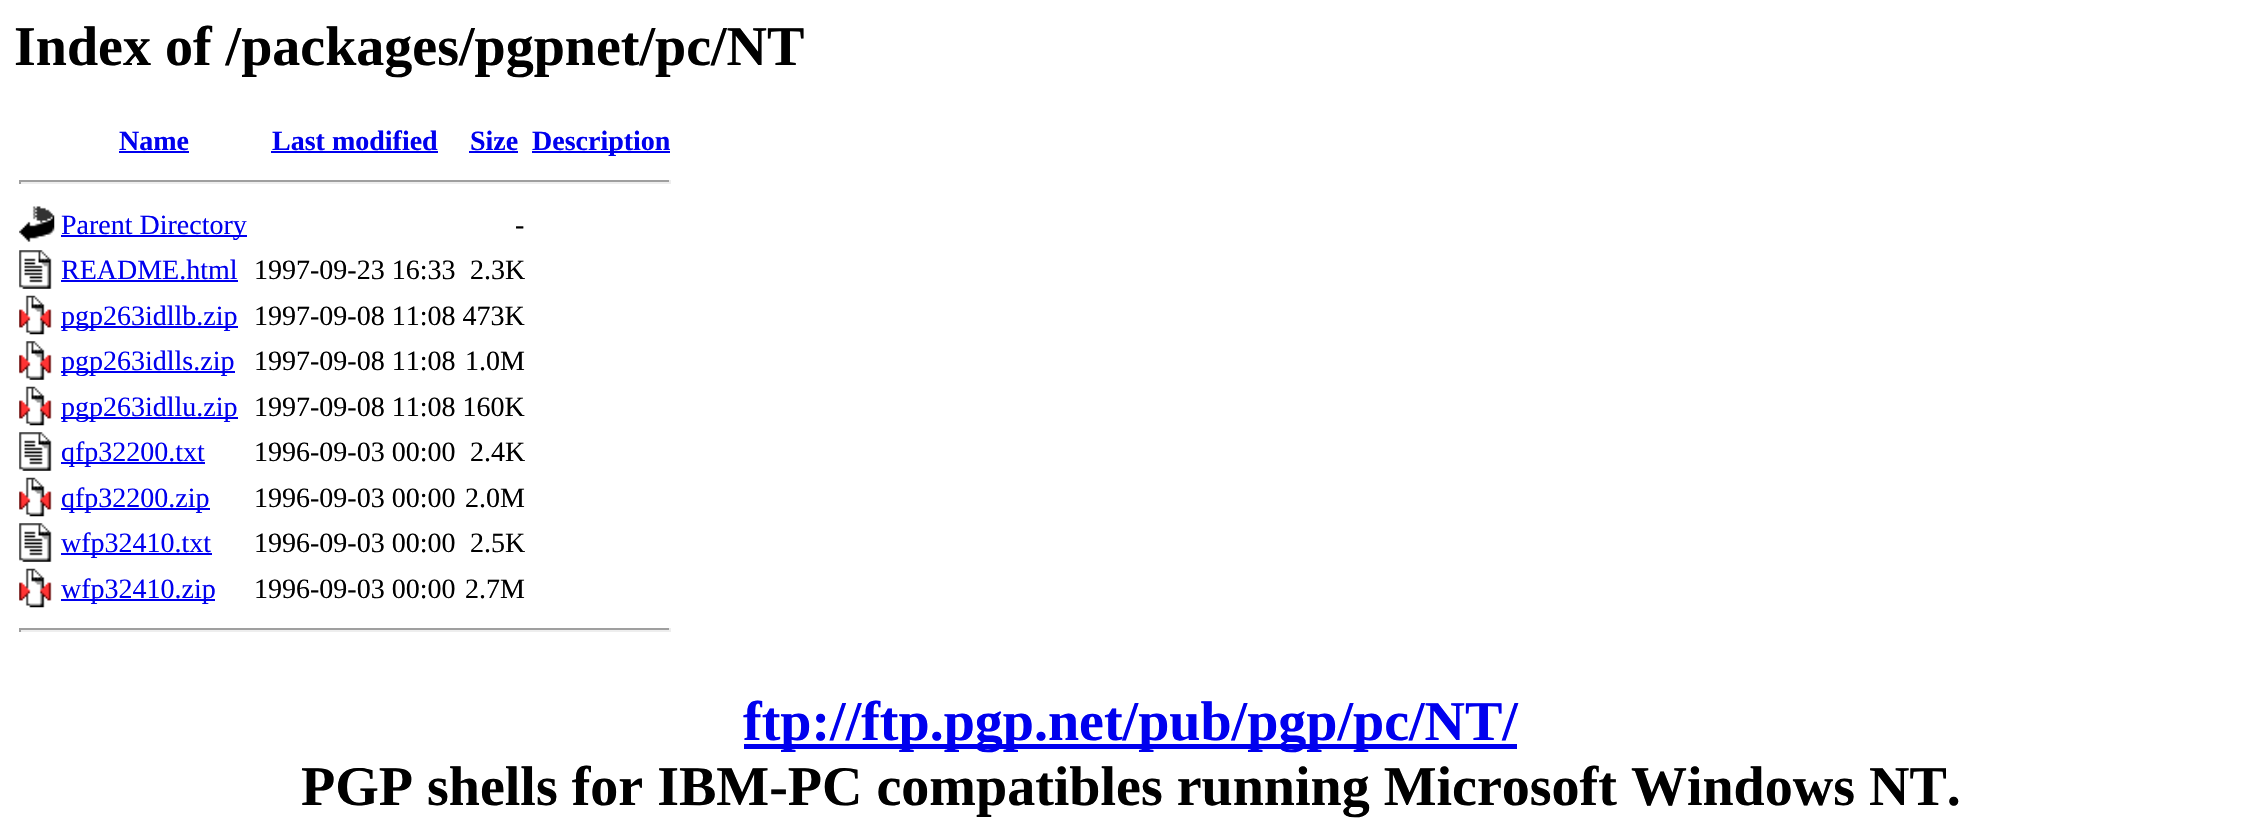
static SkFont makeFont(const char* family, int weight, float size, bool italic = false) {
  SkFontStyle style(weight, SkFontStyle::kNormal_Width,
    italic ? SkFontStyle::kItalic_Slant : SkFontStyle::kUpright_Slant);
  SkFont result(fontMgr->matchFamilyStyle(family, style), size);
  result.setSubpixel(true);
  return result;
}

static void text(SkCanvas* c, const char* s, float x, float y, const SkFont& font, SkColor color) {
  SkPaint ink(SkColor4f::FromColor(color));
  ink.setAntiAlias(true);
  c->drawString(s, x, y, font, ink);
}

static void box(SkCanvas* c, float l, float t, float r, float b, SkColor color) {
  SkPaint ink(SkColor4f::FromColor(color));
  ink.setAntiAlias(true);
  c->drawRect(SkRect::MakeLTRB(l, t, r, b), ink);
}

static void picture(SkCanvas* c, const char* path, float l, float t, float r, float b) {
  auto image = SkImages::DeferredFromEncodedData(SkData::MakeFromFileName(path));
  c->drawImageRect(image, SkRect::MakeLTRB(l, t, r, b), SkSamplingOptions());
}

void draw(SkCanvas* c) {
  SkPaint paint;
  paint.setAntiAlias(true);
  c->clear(0xffffffff);
  SkFont face1 = makeFont("Liberation Serif", 700, 56);
  text(c, "Index of /packages/pgpnet/pc/NT", 14, 65, face1, 0xff000000);
  SkFont face2 = makeFont("Liberation Serif", 700, 28);
  text(c, "Name", 119, 150, face2, 0xff0000ee);
  box(c, 119, 151, 189, 153, 0xff0000ee);
  text(c, "Last modified", 272, 150, face2, 0xff0000ee);
  box(c, 271, 151, 438, 153, 0xff0000ee);
  text(c, "Size", 470, 150, face2, 0xff0000ee);
  box(c, 469, 151, 518, 153, 0xff0000ee);
  box(c, 532, 151, 670, 153, 0xff0000ee);
  text(c, "Description", 532, 150, face2, 0xff0000ee);
  box(c, 19, 180, 670, 182, 0xff9f9f9f);
  box(c, 669, 180, 671, 184, 0xffeeeeee);
  box(c, 19, 182, 670, 184, 0xffeeeeee);
  box(c, 19, 180, 21, 184, 0xff9f9f9f);
  picture(c, "img_01.png", 19, 206, 55, 242);
  box(c, 61, 235, 247, 237, 0xff0000ee);
  SkFont face3 = makeFont("Liberation Serif", 400, 28);
  text(c, "Parent Directory", 61, 234, face3, 0xff0000ee);
  text(c, "-", 515, 234, face3, 0xff000000);
  picture(c, "img_02.png", 19, 250, 52, 289);
  text(c, "README.html", 61, 279, face3, 0xff0000ee);
  box(c, 61, 280, 238, 282, 0xff0000ee);
  text(c, "1997-09-23 16:33", 254, 279, face3, 0xff000000);
  text(c, "2.3K", 470, 279, face3, 0xff000000);
  picture(c, "img_03.png", 19, 295, 52, 335);
  box(c, 61, 326, 238, 328, 0xff0000ee);
  text(c, "pgp263idllb.zip", 61, 325, face3, 0xff0000ee);
  text(c, "1997-09-08 11:08 473K", 254, 325, face3, 0xff000000);
  picture(c, "img_04.png", 19, 341, 52, 380);
  box(c, 61, 371, 235, 373, 0xff0000ee);
  text(c, "pgp263idlls.zip", 61, 370, face3, 0xff0000ee);
  text(c, "1997-09-08 11:08", 254, 370, face3, 0xff000000);
  text(c, "1.0M", 465, 370, face3, 0xff000000);
  picture(c, "img_03.png", 19, 386, 52, 426);
  box(c, 61, 417, 238, 419, 0xff0000ee);
  text(c, "pgp263idllu.zip", 61, 416, face3, 0xff0000ee);
  text(c, "1997-09-08 11:08 160K", 254, 416, face3, 0xff000000);
  picture(c, "img_02.png", 19, 432, 52, 471);
  box(c, 61, 462, 205, 464, 0xff0000ee);
  text(c, "qfp32200.txt", 61, 461, face3, 0xff0000ee);
  text(c, "1996-09-03 00:00", 254, 461, face3, 0xff000000);
  text(c, "2.4K", 470, 461, face3, 0xff000000);
  picture(c, "img_03.png", 19, 477, 52, 517);
  box(c, 61, 508, 210, 510, 0xff0000ee);
  text(c, "qfp32200.zip", 61, 507, face3, 0xff0000ee);
  text(c, "1996-09-03 00:00", 254, 507, face3, 0xff000000);
  text(c, "2.0M", 465, 507, face3, 0xff000000);
  picture(c, "img_02.png", 19, 523, 52, 562);
  box(c, 61, 553, 212, 555, 0xff0000ee);
  text(c, "wfp32410.txt", 61, 552, face3, 0xff0000ee);
  text(c, "1996-09-03 00:00", 254, 552, face3, 0xff000000);
  text(c, "2.5K", 470, 552, face3, 0xff000000);
  picture(c, "img_03.png", 19, 568, 52, 608);
  box(c, 61, 599, 215, 601, 0xff0000ee);
  text(c, "wfp32410.zip", 61, 598, face3, 0xff0000ee);
  text(c, "1996-09-03 00:00", 254, 598, face3, 0xff000000);
  text(c, "2.7M", 465, 598, face3, 0xff000000);
  box(c, 19, 628, 670, 630, 0xff9f9f9f);
  box(c, 669, 628, 671, 632, 0xffeeeeee);
  box(c, 19, 630, 670, 632, 0xffeeeeee);
  box(c, 19, 628, 21, 632, 0xff9f9f9f);
  box(c, 744, 744, 1517, 749, 0xff0000ee);
  text(c, "ftp://ftp.pgp.net/pub/pgp/pc/NT/", 743, 740, face1, 0xff0000ee);
  text(c, "PGP shells for IBM-PC compatibles running Microsoft Windows NT.", 301, 805, face1, 0xff000000);
}
